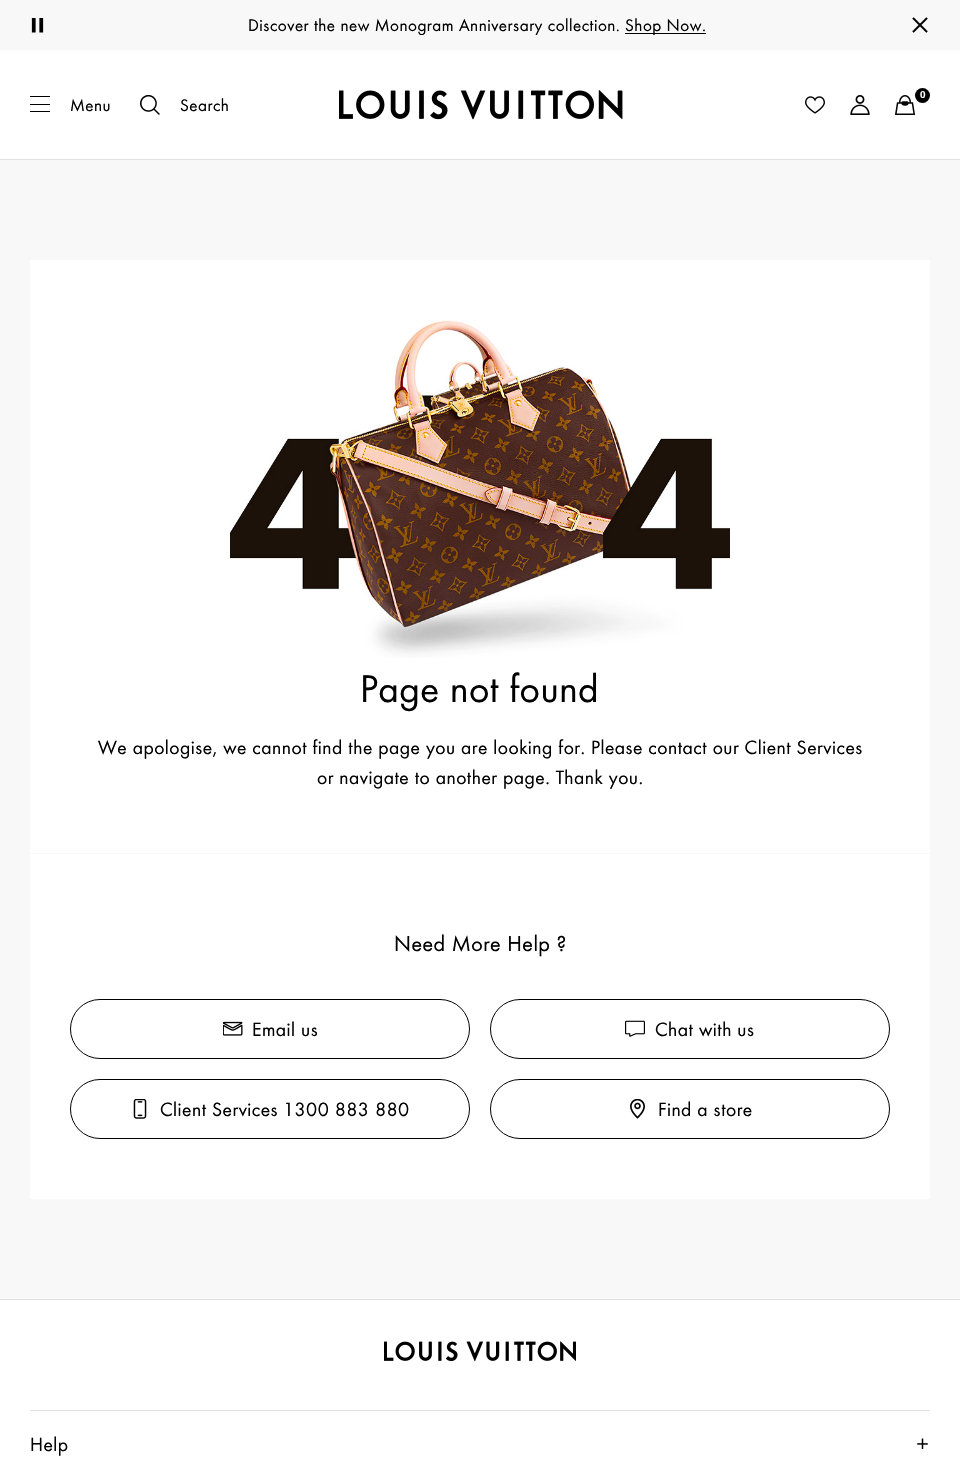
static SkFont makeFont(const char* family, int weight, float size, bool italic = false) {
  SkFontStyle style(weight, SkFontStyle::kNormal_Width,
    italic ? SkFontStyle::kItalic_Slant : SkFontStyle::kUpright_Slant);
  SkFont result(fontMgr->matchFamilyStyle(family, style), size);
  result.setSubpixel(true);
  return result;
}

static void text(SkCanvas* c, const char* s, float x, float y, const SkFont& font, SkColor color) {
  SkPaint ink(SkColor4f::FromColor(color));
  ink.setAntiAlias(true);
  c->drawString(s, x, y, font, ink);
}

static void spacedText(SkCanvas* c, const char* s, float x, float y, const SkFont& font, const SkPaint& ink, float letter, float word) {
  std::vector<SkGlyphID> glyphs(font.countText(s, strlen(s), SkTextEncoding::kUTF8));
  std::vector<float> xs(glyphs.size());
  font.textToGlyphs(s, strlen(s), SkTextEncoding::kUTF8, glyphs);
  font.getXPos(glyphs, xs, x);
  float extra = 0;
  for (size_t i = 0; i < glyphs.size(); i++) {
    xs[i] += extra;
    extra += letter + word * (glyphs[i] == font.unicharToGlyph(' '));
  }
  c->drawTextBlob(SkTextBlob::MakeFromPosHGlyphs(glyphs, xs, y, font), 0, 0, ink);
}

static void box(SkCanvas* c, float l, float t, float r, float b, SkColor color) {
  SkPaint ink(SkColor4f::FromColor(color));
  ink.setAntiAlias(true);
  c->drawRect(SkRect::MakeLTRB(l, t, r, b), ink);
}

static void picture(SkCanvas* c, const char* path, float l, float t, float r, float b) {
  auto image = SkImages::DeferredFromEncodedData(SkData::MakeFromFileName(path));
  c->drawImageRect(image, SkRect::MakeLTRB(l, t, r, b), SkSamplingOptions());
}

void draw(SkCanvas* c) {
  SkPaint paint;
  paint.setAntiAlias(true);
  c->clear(0xffffffff);
  box(c, 0, 0, 960, 50, 0xfff8f8f8);
  picture(c, "img_01.png", 31, 18, 44, 33);
  SkFont face1 = makeFont("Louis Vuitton", 400, 17.5f);
  paint.setColor(0xff000000);
  spacedText(c, "Discover the new Monogram Anniversary collection.", 248, 31, face1, paint, 0.5f, 0);
  box(c, 625, 33, 706, 34, 0xff000000);
  spacedText(c, "Shop Now.", 625, 31, face1, paint, 0.5f, 0);
  picture(c, "img_02.png", 912, 17, 928, 33);
  box(c, 0, 159, 960, 160, 0xffe1e1e1);
  picture(c, "img_03.png", 339, 90, 623, 120);
  picture(c, "img_04.png", 805, 96, 825, 114);
  picture(c, "img_05.png", 850, 95, 870, 115);
  picture(c, "img_06.png", 895, 95, 915, 115);
  c->drawCircle(922.5f, 95.5f, 7.5f, paint);
  SkFont face2 = makeFont("Liberation Sans", 700, 10);
  text(c, "0", 920, 98, face2, 0xffffffff);
  box(c, 30, 96, 50, 97, 0xff000000);
  box(c, 30, 104, 50, 105, 0xff000000);
  box(c, 30, 111, 50, 112, 0xff000000);
  spacedText(c, "Menu", 70, 111, face1, paint, 0.5f, 0);
  picture(c, "img_07.png", 140, 95, 160, 115);
  spacedText(c, "Search", 180, 111, face1, paint, 0.5f, 0);
  box(c, 0, 160, 960, 1299, 0xfff8f8f8);
  box(c, 30, 260, 930, 1199, 0xffffffff);
  box(c, 30, 853, 930, 854, 0xfff8f8f8);
  picture(c, "img_08.png", 230, 320, 730, 658);
  SkFont face3 = makeFont("Louis Vuitton", 400, 40);
  spacedText(c, "Page not found", 360, 702, face3, paint, 0.5f, 0);
  SkFont face4 = makeFont("Louis Vuitton", 400, 20);
  spacedText(c, "We apologise, we cannot find the page you are looking for. Please contact our Client Services", 98, 754, face4, paint, 0.5f, 0);
  spacedText(c, "or navigate to another page. Thank you.", 317, 784, face4, paint, 0.5f, 0);
  SkFont face5 = makeFont("Louis Vuitton", 400, 22.5f);
  spacedText(c, "Need More Help ?", 394, 951, face5, paint, 0.5f, 0);
  paint.setStyle(SkPaint::kStroke_Style);
  paint.setStrokeWidth(1);
  c->drawRoundRect(SkRect::MakeLTRB(70.5f, 999.5f, 469.5f, 1058.5f), 29.5f, 29.5f, paint);
  picture(c, "img_09.png", 223, 1021, 243, 1036);
  paint.setStyle(SkPaint::kFill_Style);
  spacedText(c, "Email us", 252, 1036, face4, paint, 0.5f, 0);
  paint.setStyle(SkPaint::kStroke_Style);
  c->drawRoundRect(SkRect::MakeLTRB(490.5f, 999.5f, 889.5f, 1058.5f), 29.5f, 29.5f, paint);
  picture(c, "img_10.png", 625, 1020, 645, 1037);
  paint.setStyle(SkPaint::kFill_Style);
  spacedText(c, "Chat with us", 655, 1036, face4, paint, 0.5f, 0);
  paint.setStyle(SkPaint::kStroke_Style);
  c->drawRoundRect(SkRect::MakeLTRB(70.5f, 1079.5f, 469.5f, 1138.5f), 29.5f, 29.5f, paint);
  picture(c, "img_11.png", 133, 1099, 147, 1119);
  paint.setStyle(SkPaint::kFill_Style);
  spacedText(c, "Client Services", 160, 1116, face4, paint, 0.5f, 0);
  spacedText(c, "1300 883 880", 283, 1116, face4, paint, 0.5f, 0);
  paint.setStyle(SkPaint::kStroke_Style);
  c->drawRoundRect(SkRect::MakeLTRB(490.5f, 1079.5f, 889.5f, 1138.5f), 29.5f, 29.5f, paint);
  picture(c, "img_12.png", 630, 1099, 645, 1119);
  paint.setStyle(SkPaint::kFill_Style);
  spacedText(c, "Find a store", 658, 1116, face4, paint, 0.5f, 0);
  box(c, 0, 1299, 960, 1300, 0xffe1e1e1);
  picture(c, "img_13.png", 384, 1341, 576, 1362);
  box(c, 30, 1410, 930, 1411, 0xffe1e1e1);
  spacedText(c, "Help", 30, 1451, face4, paint, 0.5f, 0);
  picture(c, "img_14.png", 917, 1438, 928, 1449);
}
